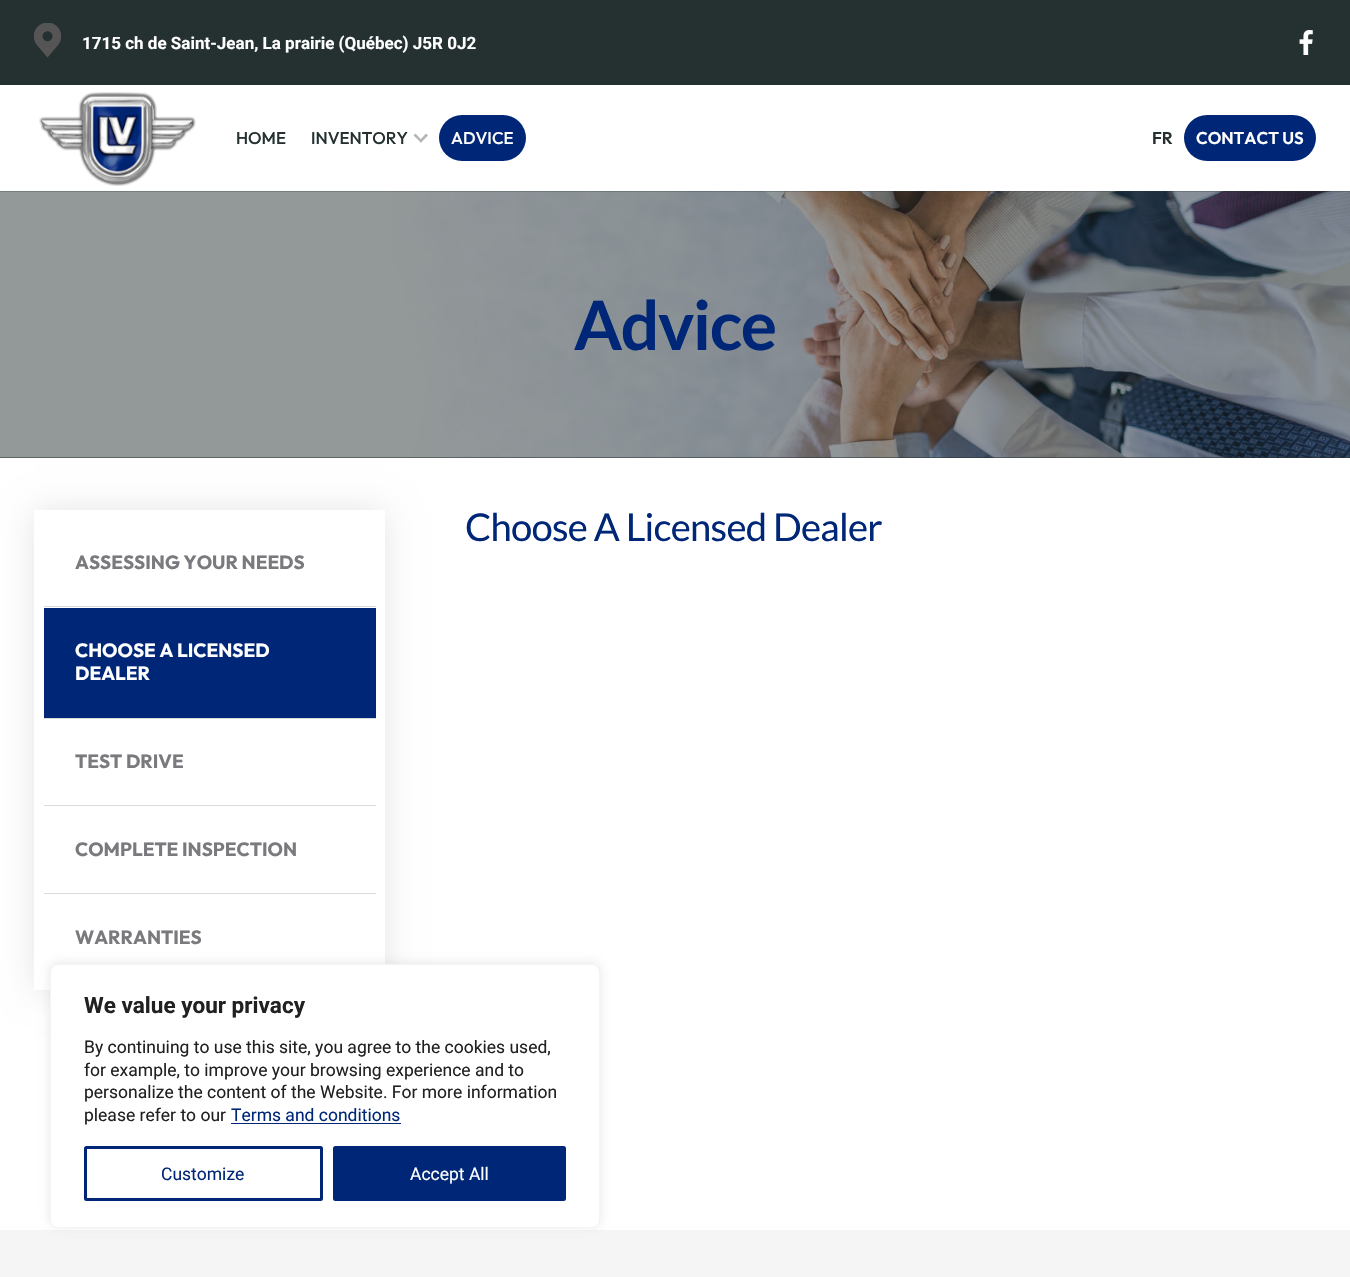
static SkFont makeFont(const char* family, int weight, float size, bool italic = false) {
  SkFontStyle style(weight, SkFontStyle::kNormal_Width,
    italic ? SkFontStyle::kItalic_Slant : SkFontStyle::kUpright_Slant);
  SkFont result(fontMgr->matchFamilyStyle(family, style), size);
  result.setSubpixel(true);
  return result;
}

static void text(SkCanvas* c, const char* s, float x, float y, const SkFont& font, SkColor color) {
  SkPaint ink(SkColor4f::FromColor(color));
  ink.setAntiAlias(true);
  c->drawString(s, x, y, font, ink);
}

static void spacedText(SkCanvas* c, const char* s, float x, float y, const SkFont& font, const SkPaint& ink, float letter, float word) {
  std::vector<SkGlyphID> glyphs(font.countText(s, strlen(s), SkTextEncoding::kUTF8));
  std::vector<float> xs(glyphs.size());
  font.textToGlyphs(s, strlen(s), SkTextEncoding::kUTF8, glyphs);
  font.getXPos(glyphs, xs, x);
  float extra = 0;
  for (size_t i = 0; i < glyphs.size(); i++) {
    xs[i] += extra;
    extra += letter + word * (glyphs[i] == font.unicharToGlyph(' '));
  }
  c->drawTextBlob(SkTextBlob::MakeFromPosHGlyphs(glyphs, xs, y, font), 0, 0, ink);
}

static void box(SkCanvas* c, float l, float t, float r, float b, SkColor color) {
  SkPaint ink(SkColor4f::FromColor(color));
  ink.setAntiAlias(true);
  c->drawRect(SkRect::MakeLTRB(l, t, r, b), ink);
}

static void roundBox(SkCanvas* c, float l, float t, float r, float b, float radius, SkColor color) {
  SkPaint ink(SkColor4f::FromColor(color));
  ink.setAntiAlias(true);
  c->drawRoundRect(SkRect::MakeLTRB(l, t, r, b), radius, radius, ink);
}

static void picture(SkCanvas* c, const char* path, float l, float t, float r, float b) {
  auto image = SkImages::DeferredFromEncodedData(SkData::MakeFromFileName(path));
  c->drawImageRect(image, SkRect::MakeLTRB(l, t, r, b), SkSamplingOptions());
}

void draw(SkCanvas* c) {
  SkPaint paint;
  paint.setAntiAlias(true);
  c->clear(0xffffffff);
  box(c, 0, 0, 1350, 85, 0xff253031);
  picture(c, "img_01.png", 34, 23, 61, 58);
  SkFont face1 = makeFont("Roboto", 700, 17);
  text(c, "1715 ch de Saint-Jean, La prairie (Québec) J5R 0J2", 82, 49, face1, 0xffffffff);
  picture(c, "img_02.png", 1299, 30, 1313, 55);
  picture(c, "img_03.png", 39, 92, 196, 186);
  SkFont face2 = makeFont("Outfit", 500, 17);
  text(c, "HOME", 236, 144, face2, 0xff253031);
  text(c, "INVENTORY", 311, 144, face2, 0xff253031);
  paint.setColor(0xffb5b5b5);
  c->drawPath(SkPathBuilder().moveTo(428, 135.5f).lineTo(421, 142.5f).lineTo(419, 141).lineTo(426, 133.5f).close().detach(), paint);
  c->drawPath(SkPathBuilder().moveTo(422.5f, 141).lineTo(421, 142.5f).lineTo(413.5f, 135.5f).lineTo(415.5f, 133.5f).close().detach(), paint);
  roundBox(c, 439, 115, 526, 161, 23, 0xff002777);
  text(c, "ADVICE", 451, 144, face2, 0xffffffff);
  SkFont face3 = makeFont("Outfit", 600, 17);
  text(c, "FR", 1152, 144, face3, 0xff253031);
  roundBox(c, 1184, 115, 1316, 161, 23, 0xff002777);
  text(c, "CONTACT US", 1196, 144, face3, 0xffffffff);
  box(c, 0, 191, 1350, 458, 0xff253031);
  picture(c, "img_04.png", 0, 191, 1350, 458);
  SkFont face4 = makeFont("Lato", 700, 68);
  paint.setColor(0xff002777);
  spacedText(c, "Advice", 574, 350, face4, paint, -1.5f, 0);
  SkFont face5 = makeFont("Lato", 400, 38.25f);
  spacedText(c, "Choose A Licensed Dealer", 465, 541, face5, paint, -0.75f, 0);
  c->save();
  c->clipPath(SkPathBuilder(SkPathFillType::kEvenOdd).moveTo(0, 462).lineTo(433, 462).lineTo(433, 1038).lineTo(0, 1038).close().moveTo(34, 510).lineTo(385, 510).lineTo(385, 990).lineTo(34, 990).close().detach(), true);
  paint.setColor(0x1a000000);
  paint.setMaskFilter(SkMaskFilter::MakeBlur(kNormal_SkBlurStyle, 15.5f));
  c->drawRect(SkRect::MakeLTRB(34, 510, 385, 990), paint);
  paint.setMaskFilter(nullptr);
  c->restore();
  box(c, 44, 606, 376, 607, 0xffdbdbdb);
  SkFont face6 = makeFont("Outfit", 700, 19.1f);
  text(c, "ASSESSING YOUR NEEDS", 75, 569, face6, 0xff7a7a7e);
  box(c, 44, 608, 376, 718, 0xff002777);
  box(c, 44, 718, 376, 719, 0xffdbdbdb);
  text(c, "CHOOSE A LICENSED", 75, 657, face6, 0xffffffff);
  text(c, "DEALER", 75, 680, face6, 0xffffffff);
  box(c, 44, 805, 376, 806, 0xffdbdbdb);
  text(c, "TEST DRIVE", 75, 768, face6, 0xff7a7a7e);
  box(c, 44, 893, 376, 894, 0xffdbdbdb);
  text(c, "COMPLETE INSPECTION", 75, 856, face6, 0xff7a7a7e);
  text(c, "WARRANTIES", 75, 944, face6, 0xff7a7a7e);
  box(c, 0, 1230, 1350, 1277, 0xfff5f5f5);
  paint.setColor(0x4dacabab);
  paint.setMaskFilter(SkMaskFilter::MakeBlur(kNormal_SkBlurStyle, 6));
  c->drawRoundRect(SkRect::MakeLTRB(50, 963, 600, 1226), 8, 8, paint);
  paint.setMaskFilter(nullptr);
  paint.setColor(0xffffffff);
  c->drawRoundRect(SkRect::MakeLTRB(50.5f, 964.5f, 599.5f, 1227.5f), 7.5f, 7.5f, paint);
  paint.setStyle(SkPaint::kStroke_Style);
  paint.setStrokeWidth(1);
  paint.setColor(0xfff4f4f4);
  c->drawRoundRect(SkRect::MakeLTRB(50.5f, 964.5f, 599.5f, 1227.5f), 7.5f, 7.5f, paint);
  SkFont face7 = makeFont("Roboto", 700, 22.5f);
  text(c, "We value your privacy", 84, 1013, face7, 0xff212121);
  SkFont face8 = makeFont("Roboto", 400, 17.5f);
  text(c, "By continuing to use this site, you agree to the cookies used,", 84, 1053, face8, 0xff212121);
  text(c, "for example, to improve your browsing experience and to", 84, 1076, face8, 0xff212121);
  text(c, "personalize the content of the Website. For more information", 84, 1098, face8, 0xff212121);
  text(c, "please refer to our", 84, 1121, face8, 0xff212121);
  text(c, "Terms and conditions", 231, 1121, face8, 0xff002777);
  box(c, 231, 1123, 401, 1124, 0xff002777);
  paint.setStrokeWidth(3);
  paint.setColor(0xff002777);
  c->drawRoundRect(SkRect::MakeLTRB(85.5f, 1147.5f, 321.5f, 1199.5f), 1, 1, paint);
  text(c, "Customize", 161, 1180, face8, 0xff002777);
  paint.setStyle(SkPaint::kFill_Style);
  c->drawRoundRect(SkRect::MakeLTRB(334.5f, 1147.5f, 564.5f, 1199.5f), 1, 1, paint);
  paint.setStyle(SkPaint::kStroke_Style);
  c->drawRoundRect(SkRect::MakeLTRB(334.5f, 1147.5f, 564.5f, 1199.5f), 1, 1, paint);
  text(c, "Accept All", 410, 1180, face8, 0xffffffff);
}
